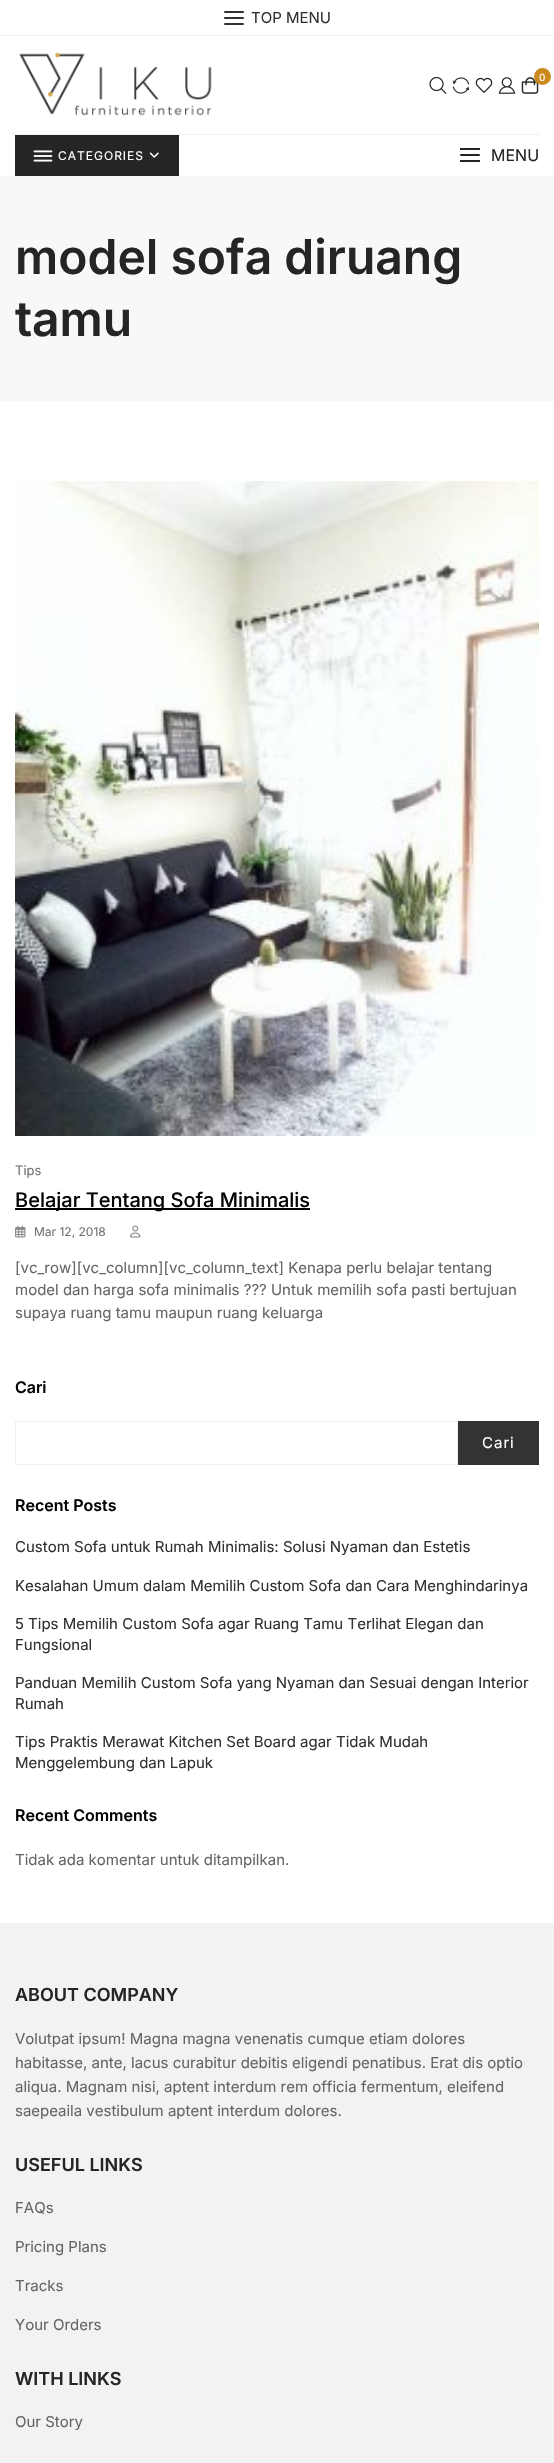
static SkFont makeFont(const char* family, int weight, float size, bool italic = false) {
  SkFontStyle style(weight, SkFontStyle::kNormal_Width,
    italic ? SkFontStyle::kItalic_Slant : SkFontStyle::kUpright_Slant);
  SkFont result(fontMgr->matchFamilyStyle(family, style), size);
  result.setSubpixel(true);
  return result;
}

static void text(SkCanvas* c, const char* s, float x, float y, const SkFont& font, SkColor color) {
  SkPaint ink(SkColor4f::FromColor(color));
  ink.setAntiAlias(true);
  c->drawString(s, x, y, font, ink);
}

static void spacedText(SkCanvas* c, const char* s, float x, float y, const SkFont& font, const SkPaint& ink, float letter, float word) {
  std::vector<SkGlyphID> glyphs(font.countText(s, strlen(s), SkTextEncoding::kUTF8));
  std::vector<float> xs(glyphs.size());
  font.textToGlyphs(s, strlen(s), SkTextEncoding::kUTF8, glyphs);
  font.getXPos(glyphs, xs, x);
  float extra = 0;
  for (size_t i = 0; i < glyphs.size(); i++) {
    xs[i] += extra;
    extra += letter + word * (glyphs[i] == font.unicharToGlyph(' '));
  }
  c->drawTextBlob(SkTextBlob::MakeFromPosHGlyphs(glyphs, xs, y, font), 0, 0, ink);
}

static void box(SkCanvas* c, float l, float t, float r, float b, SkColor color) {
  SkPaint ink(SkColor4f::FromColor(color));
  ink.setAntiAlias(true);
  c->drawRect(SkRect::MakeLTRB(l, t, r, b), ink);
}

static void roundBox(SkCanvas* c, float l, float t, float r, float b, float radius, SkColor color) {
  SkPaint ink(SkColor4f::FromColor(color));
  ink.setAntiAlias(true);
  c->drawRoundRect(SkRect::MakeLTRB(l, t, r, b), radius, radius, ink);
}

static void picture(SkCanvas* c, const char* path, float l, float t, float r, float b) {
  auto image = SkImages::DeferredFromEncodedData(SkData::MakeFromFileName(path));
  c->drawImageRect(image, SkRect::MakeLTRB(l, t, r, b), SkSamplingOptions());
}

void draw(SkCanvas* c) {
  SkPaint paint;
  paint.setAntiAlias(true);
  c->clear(0xffffffff);
  box(c, 0, 35, 554, 36, 0xfff1f1f1);
  roundBox(c, 224, 17, 244, 19, 1, 0xff313131);
  roundBox(c, 224, 11, 244, 13, 1, 0xff313131);
  roundBox(c, 224, 23, 244, 25, 1, 0xff313131);
  SkFont face1 = makeFont("Inter", 400, 15);
  text(c, "TOP MENU", 251, 23, face1, 0xff313131);
  picture(c, "img_01.png", 19, 52, 212, 116);
  picture(c, "img_02.png", 429, 77, 447, 94);
  picture(c, "img_03.png", 452, 77, 470, 94);
  picture(c, "img_04.png", 475, 77, 493, 93);
  picture(c, "img_05.png", 498, 77, 516, 94);
  picture(c, "img_06.png", 521, 77, 539, 94);
  paint.setColor(0xffcb891e);
  c->drawCircle(542.5f, 76.5f, 8.5f, paint);
  SkFont face2 = makeFont("Inter", 400, 10);
  text(c, "0", 539, 81, face2, 0xffffffff);
  box(c, 15, 134, 539, 135, 0xfff1f1f1);
  box(c, 15, 135, 179, 176, 0xff252525);
  picture(c, "img_07.png", 33, 150, 53, 162);
  SkFont face3 = makeFont("Inter", 400, 12);
  paint.setColor(0xffffffff);
  spacedText(c, "CATEGORIES", 58, 160, face3, paint, 1, 0);
  picture(c, "img_08.png", 149, 152, 159, 158);
  roundBox(c, 460, 154, 480, 156, 1, 0xff252525);
  box(c, 460, 148, 480, 150, 0xff252525);
  box(c, 460, 160, 480, 162, 0xff252525);
  SkFont face4 = makeFont("Inter", 400, 16);
  text(c, "MENU", 491, 161, face4, 0xff252525);
  box(c, 0, 176, 554, 401, 0xfff8f8f8);
  SkFont face5 = makeFont("Inter", 600, 48);
  text(c, "model sofa diruang", 15, 274, face5, 0xff252525);
  text(c, "tamu", 15, 336, face5, 0xff252525);
  picture(c, "img_09.png", 15, 481, 539, 1136);
  SkFont face6 = makeFont("Inter", 400, 13);
  text(c, "Tips", 15, 1175, face6, 0xff717171);
  box(c, 15, 1208, 310, 1210, 0xff030303);
  SkFont face7 = makeFont("Inter", 500, 20);
  text(c, "Belajar Tentang Sofa Minimalis", 15, 1207, face7, 0xff030303);
  picture(c, "img_10.png", 15, 1225, 26, 1238);
  text(c, "Mar 12, 2018", 34, 1236, face3, 0xff717171);
  picture(c, "img_11.png", 130, 1225, 141, 1238);
  text(c, "[vc_row][vc_column][vc_column_text] Kenapa perlu belajar tentang", 15, 1273, face1, 0xff656565);
  text(c, "model dan harga sofa minimalis ?\077? Untuk memilih sofa pasti bertujuan", 15, 1295, face1, 0xff656565);
  text(c, "supaya ruang tamu maupun ruang keluarga", 15, 1318, face1, 0xff656565);
  SkFont face8 = makeFont("Inter", 600, 16);
  text(c, "Cari", 15, 1393, face8, 0xff030303);
  paint.setStyle(SkPaint::kStroke_Style);
  paint.setStrokeWidth(1);
  paint.setColor(0xfff1f1f1);
  c->drawRect(SkRect::MakeLTRB(15.5f, 1421.5f, 457.5f, 1464.5f), paint);
  box(c, 458, 1421, 539, 1465, 0xff333333);
  paint.setStyle(SkPaint::kFill_Style);
  paint.setColor(0xffffffff);
  spacedText(c, "Cari", 482, 1448, face1, paint, 1, 0);
  text(c, "Recent Posts", 15, 1511, face8, 0xff030303);
  text(c, "Custom Sofa untuk Rumah Minimalis: Solusi Nyaman dan Estetis", 15, 1552, face1, 0xff313131);
  text(c, "Kesalahan Umum dalam Memilih Custom Sofa dan Cara Menghindarinya", 15, 1591, face1, 0xff313131);
  text(c, "5 Tips Memilih Custom Sofa agar Ruang Tamu Terlihat Elegan dan", 15, 1629, face1, 0xff313131);
  text(c, "Fungsional", 15, 1650, face1, 0xff313131);
  text(c, "Panduan Memilih Custom Sofa yang Nyaman dan Sesuai dengan Interior", 15, 1688, face1, 0xff313131);
  text(c, "Rumah", 15, 1709, face1, 0xff313131);
  text(c, "Tips Praktis Merawat Kitchen Set Board agar Tidak Mudah", 15, 1747, face1, 0xff313131);
  text(c, "Menggelembung dan Lapuk", 15, 1768, face1, 0xff313131);
  text(c, "Recent Comments", 15, 1821, face8, 0xff030303);
  text(c, "Tidak ada komentar untuk ditampilkan.", 15, 1865, face1, 0xff656565);
  box(c, 0, 1923, 554, 2463, 0xfff2f2f2);
  SkFont face9 = makeFont("Inter", 600, 18);
  text(c, "ABOUT COMPANY", 15, 2001, face9, 0xff252525);
  text(c, "Volutpat ipsum! Magna magna venenatis cumque etiam dolores", 15, 2044, face1, 0xff656565);
  text(c, "habitasse, ante, lacus curabitur debitis eligendi penatibus. Erat dis optio", 15, 2068, face1, 0xff656565);
  text(c, "aliqua. Magnam nisi, aptent interdum rem officia fermentum, eleifend", 15, 2092, face1, 0xff656565);
  text(c, "saepeaila vestibulum aptent interdum dolores.", 15, 2116, face1, 0xff656565);
  text(c, "USEFUL LINKS", 15, 2171, face9, 0xff252525);
  text(c, "FAQs", 15, 2213, face1, 0xff656565);
  text(c, "Pricing Plans", 15, 2252, face1, 0xff656565);
  text(c, "Tracks", 15, 2291, face1, 0xff656565);
  text(c, "Your Orders", 15, 2330, face1, 0xff656565);
  text(c, "WITH LINKS", 15, 2385, face9, 0xff252525);
  text(c, "Our Story", 15, 2427, face1, 0xff656565);
}
